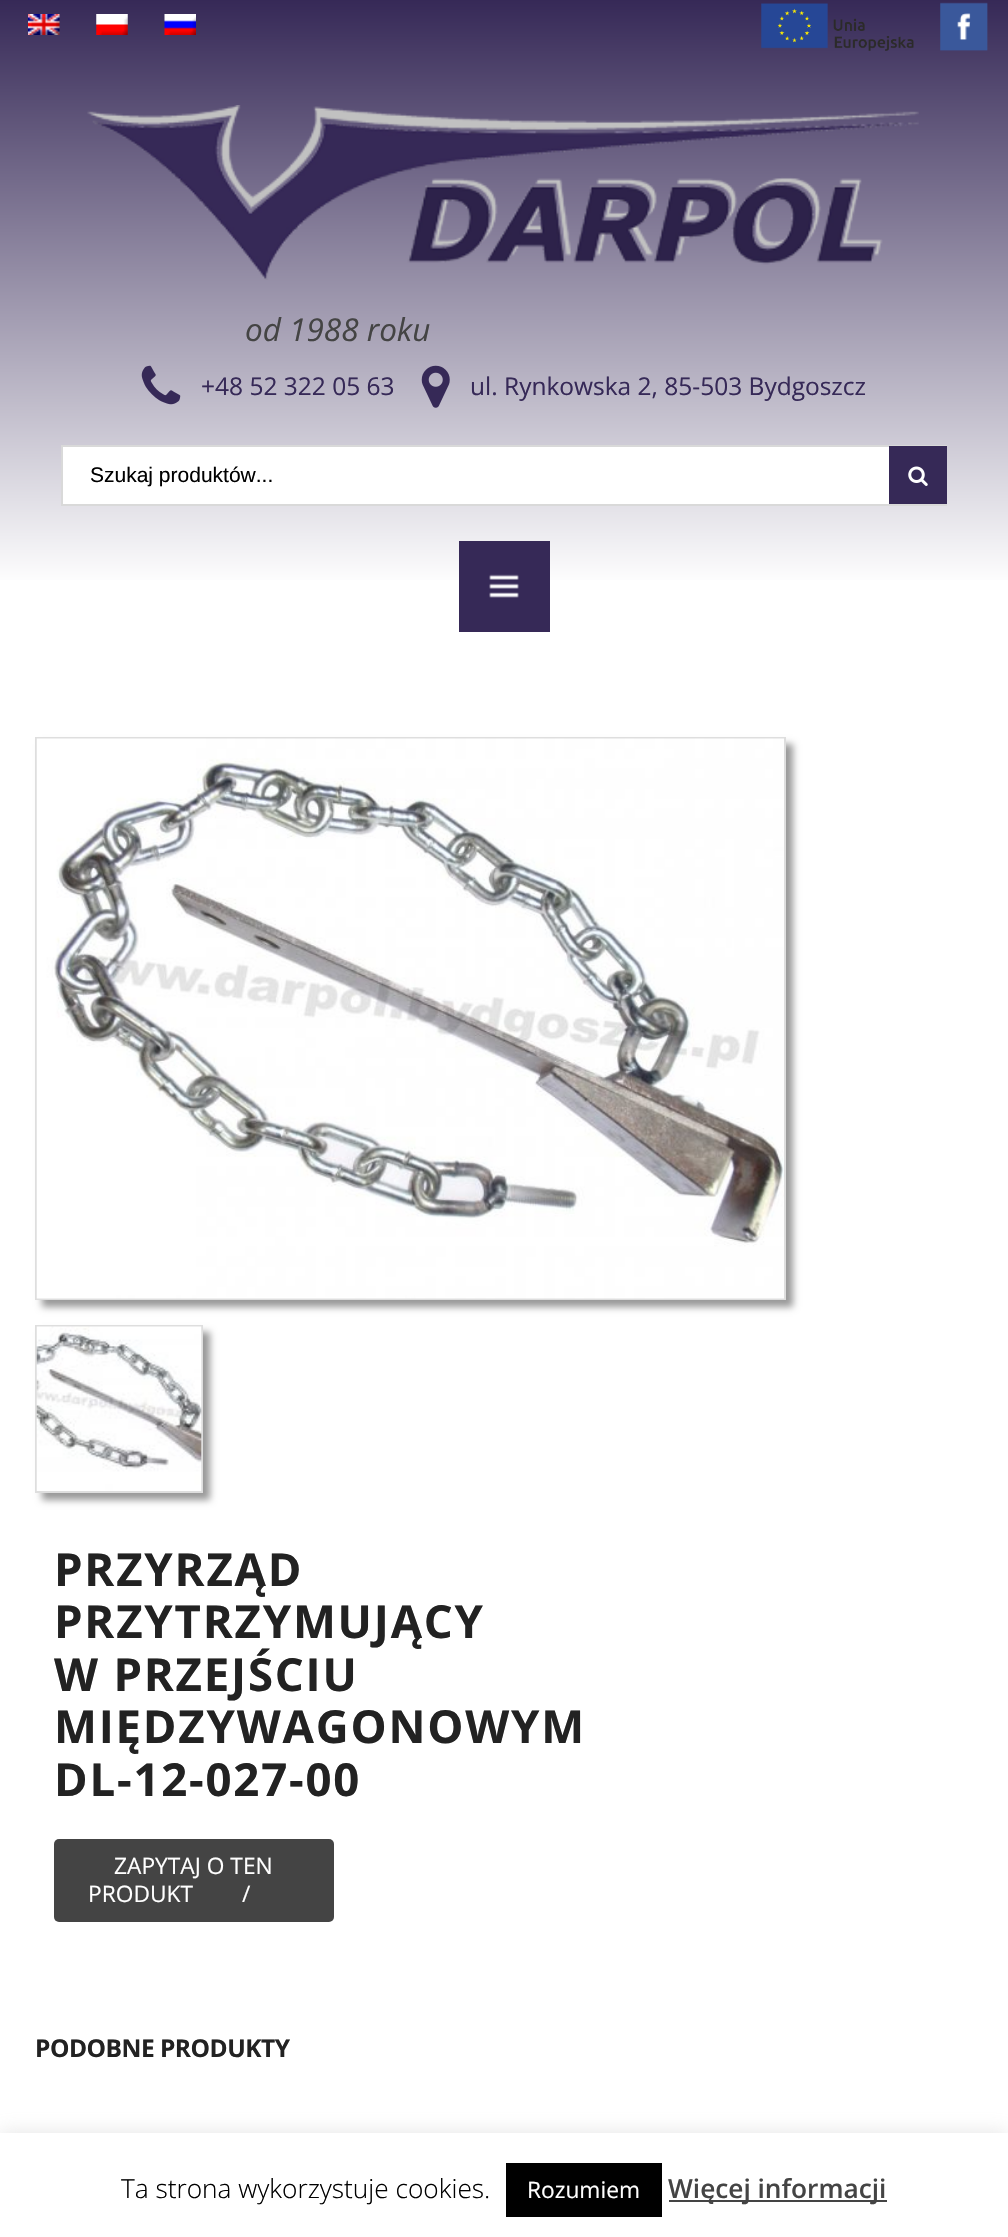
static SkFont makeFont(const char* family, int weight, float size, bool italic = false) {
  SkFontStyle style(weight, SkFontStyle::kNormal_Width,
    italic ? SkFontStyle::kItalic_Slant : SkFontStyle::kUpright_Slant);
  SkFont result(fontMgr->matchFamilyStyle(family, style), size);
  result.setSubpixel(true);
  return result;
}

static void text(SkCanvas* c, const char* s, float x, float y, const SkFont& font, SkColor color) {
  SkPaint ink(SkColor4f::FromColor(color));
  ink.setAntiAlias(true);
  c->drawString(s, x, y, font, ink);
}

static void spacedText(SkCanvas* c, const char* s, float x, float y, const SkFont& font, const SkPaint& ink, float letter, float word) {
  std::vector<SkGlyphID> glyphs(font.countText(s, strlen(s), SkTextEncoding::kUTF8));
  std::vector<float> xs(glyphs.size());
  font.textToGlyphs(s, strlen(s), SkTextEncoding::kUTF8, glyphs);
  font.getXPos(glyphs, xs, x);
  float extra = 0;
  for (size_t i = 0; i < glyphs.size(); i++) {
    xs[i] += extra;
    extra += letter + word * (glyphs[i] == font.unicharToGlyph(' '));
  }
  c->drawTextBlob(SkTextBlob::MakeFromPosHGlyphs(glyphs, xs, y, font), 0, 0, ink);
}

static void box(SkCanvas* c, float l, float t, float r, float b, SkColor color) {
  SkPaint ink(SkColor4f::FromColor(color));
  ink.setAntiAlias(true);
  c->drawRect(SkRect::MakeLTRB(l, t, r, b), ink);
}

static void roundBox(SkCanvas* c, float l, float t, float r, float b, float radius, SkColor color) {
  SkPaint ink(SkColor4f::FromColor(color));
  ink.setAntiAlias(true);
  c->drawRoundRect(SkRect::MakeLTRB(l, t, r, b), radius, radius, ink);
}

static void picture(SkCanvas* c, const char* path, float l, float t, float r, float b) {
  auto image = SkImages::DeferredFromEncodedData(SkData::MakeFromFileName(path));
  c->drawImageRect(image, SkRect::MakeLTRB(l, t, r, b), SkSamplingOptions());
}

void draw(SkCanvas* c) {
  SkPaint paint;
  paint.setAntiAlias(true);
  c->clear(0xffffffff);
  {
    const SkColor colors[] = {0xff362957, 0xffffffff};
    const float stops[] = {0, 0.88f};
    const SkPoint ends[] = {{504, 0}, {504, 667}};
    paint.setShader(SkGradientShader::MakeLinear(ends, colors, stops, 2, SkTileMode::kClamp));
    paint.setAlpha(255);
  }
  c->drawRect(SkRect::MakeLTRB(0, 0, 1008, 580), paint);
  picture(c, "img_01.png", 28, 14, 60, 35);
  picture(c, "img_02.png", 96, 14, 128, 35);
  picture(c, "img_03.png", 164, 14, 196, 35);
  picture(c, "img_04.png", 761, 3, 914, 51);
  picture(c, "img_05.png", 940, 2, 988, 51);
  picture(c, "img_06.png", 87, 105, 919, 280);
  SkFont face1 = makeFont("Open Sans", 400, 31.5f, true);
  text(c, "od 1988 roku", 245, 341, face1, 0xff444444);
  picture(c, "img_07.png", 141, 365, 181, 405);
  SkFont face2 = makeFont("Open Sans", 400, 24.5f);
  text(c, "+48 52 322 05 63", 201, 395, face2, 0xff362957);
  picture(c, "img_08.png", 421, 365, 450, 408);
  text(c, "ul. Rynkowska 2, 85-503 Bydgoszcz", 470, 395, face2, 0xff362957);
  box(c, 63, 447, 889, 504, 0xffffffff);
  paint.setStyle(SkPaint::kStroke_Style);
  paint.setStrokeWidth(2);
  paint.setShader(nullptr);
  paint.setColor(0xffd9d9d9);
  c->drawRect(SkRect::MakeLTRB(62, 446, 946, 505), paint);
  SkFont face3 = makeFont("Liberation Sans", 400, 21);
  text(c, "Szukaj produktów...", 90, 482, face3, 0xff000000);
  box(c, 889, 446, 947, 504, 0xff362957);
  picture(c, "img_09.png", 908, 466, 928, 486);
  box(c, 459, 541, 550, 632, 0xff362957);
  picture(c, "img_10.png", 489, 574, 519, 598);
  paint.setStyle(SkPaint::kFill_Style);
  paint.setColor(0x66000000);
  paint.setMaskFilter(SkMaskFilter::MakeBlur(kNormal_SkBlurStyle, 3.5f));
  c->drawRect(SkRect::MakeLTRB(42, 744, 793, 1307), paint);
  paint.setMaskFilter(nullptr);
  paint.setStyle(SkPaint::kStroke_Style);
  paint.setColor(0xffdedede);
  c->drawRect(SkRect::MakeLTRB(36, 738, 785, 1299), paint);
  picture(c, "img_11.png", 36, 738, 784, 1299);
  paint.setStyle(SkPaint::kFill_Style);
  paint.setColor(0x66000000);
  paint.setMaskFilter(SkMaskFilter::MakeBlur(kNormal_SkBlurStyle, 3.5f));
  c->drawRect(SkRect::MakeLTRB(42, 1332, 210, 1500), paint);
  paint.setMaskFilter(nullptr);
  paint.setStyle(SkPaint::kStroke_Style);
  paint.setColor(0xffdedede);
  c->drawRect(SkRect::MakeLTRB(36, 1326, 202, 1492), paint);
  picture(c, "img_12.png", 36, 1326, 202, 1491);
  SkFont face4 = makeFont("Open Sans", 700, 45.5f);
  paint.setStyle(SkPaint::kFill_Style);
  paint.setColor(0xff222222);
  spacedText(c, "PRZYRZĄD", 54, 1586, face4, paint, 1.8f, 0);
  spacedText(c, "PRZYTRZYMUJĄCY", 54, 1638, face4, paint, 1.8f, 0);
  spacedText(c, "W PRZEJŚCIU", 54, 1691, face4, paint, 1.8f, 0);
  spacedText(c, "MIĘDZYWAGONOWYM", 54, 1743, face4, paint, 1.8f, 0);
  spacedText(c, "DL-12-027-00", 54, 1796, face4, paint, 1.8f, 0);
  roundBox(c, 54, 1839, 334, 1922, 5, 0xff444444);
  SkFont face5 = makeFont("Open Sans", 400, 22.75f);
  text(c, "ZAPYTAJ O TEN", 114, 1874, face5, 0xffffffff);
  paint.setColor(0xffffffff);
  spacedText(c, "PRODUKT /", 88, 1902, face5, paint, 0, 43);
  SkFont face6 = makeFont("Open Sans", 700, 24.5f);
  paint.setColor(0xff222222);
  spacedText(c, "PODOBNE PRODUKTY", 35, 2057, face6, paint, -0.5f, 0);
  paint.setColor(0x4dacabab);
  paint.setMaskFilter(SkMaskFilter::MakeBlur(kNormal_SkBlurStyle, 9));
  c->drawRect(SkRect::MakeLTRB(0, 2132, 1008, 2237), paint);
  paint.setMaskFilter(nullptr);
  box(c, 0, 2133, 1008, 2237, 0xffffffff);
  SkFont face7 = makeFont("Open Sans", 300, 26.25f);
  text(c, "Ta strona wykorzystuje cookies.", 121, 2198, face7, 0xff000000);
  box(c, 506, 2163, 662, 2217, 0xff000000);
  text(c, "Rozumiem", 527, 2198, face5, 0xffffffff);
  box(c, 669, 2200, 887, 2202, 0xff444444);
  SkFont face8 = makeFont("Open Sans", 600, 26.25f);
  text(c, "Więcej informacji", 668, 2198, face8, 0xff444444);
}
